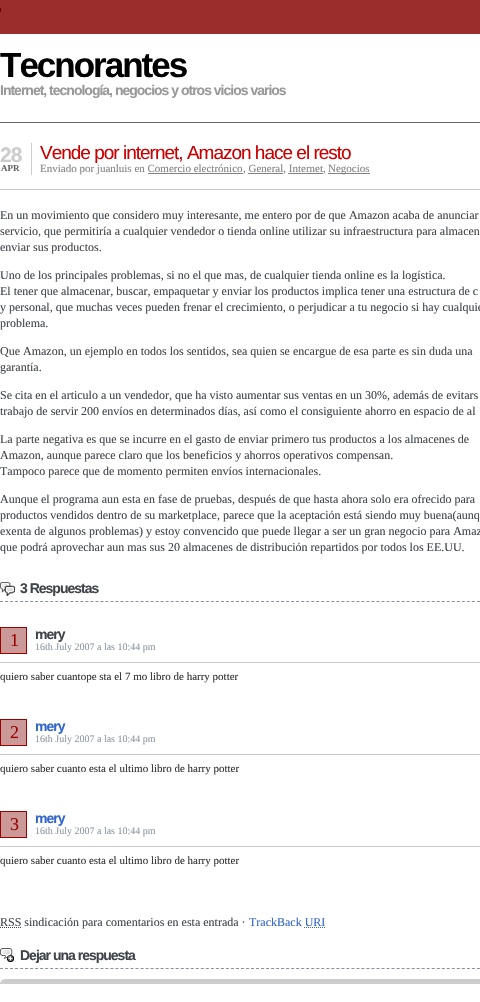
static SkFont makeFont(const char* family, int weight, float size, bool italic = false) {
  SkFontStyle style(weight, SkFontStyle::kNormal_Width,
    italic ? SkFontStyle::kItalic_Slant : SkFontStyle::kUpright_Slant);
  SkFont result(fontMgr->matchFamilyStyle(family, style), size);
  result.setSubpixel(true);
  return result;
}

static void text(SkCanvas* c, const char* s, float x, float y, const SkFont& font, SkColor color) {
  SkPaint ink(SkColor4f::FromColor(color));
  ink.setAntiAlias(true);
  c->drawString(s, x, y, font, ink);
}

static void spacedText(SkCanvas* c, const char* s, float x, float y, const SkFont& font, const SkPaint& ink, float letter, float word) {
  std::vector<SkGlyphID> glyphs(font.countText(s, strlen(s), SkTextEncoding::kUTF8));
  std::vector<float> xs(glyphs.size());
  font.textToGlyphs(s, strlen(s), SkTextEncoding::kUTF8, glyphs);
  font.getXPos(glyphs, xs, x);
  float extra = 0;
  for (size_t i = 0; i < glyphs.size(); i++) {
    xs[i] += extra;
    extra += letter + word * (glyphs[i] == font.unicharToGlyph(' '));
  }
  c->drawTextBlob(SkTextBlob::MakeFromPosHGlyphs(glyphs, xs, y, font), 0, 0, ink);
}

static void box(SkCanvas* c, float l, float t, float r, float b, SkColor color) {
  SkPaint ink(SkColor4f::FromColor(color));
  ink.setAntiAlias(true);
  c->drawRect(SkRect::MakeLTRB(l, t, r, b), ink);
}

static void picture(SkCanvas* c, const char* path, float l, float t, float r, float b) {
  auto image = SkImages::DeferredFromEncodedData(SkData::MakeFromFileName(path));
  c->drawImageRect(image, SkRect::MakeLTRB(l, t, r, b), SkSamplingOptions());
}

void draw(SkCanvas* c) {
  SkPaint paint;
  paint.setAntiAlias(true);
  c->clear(0xffffffff);
  box(c, 0, 0, 480, 34, 0xff9b2d2d);
  box(c, 0, 8, 1, 12, 0xff660000);
  SkFont face1 = makeFont("Liberation Sans", 700, 35);
  paint.setColor(0xff000000);
  spacedText(c, "Tecnorantes", 0, 77, face1, paint, -2, 0);
  SkFont face2 = makeFont("Liberation Sans", 700, 14);
  paint.setColor(0xff999999);
  spacedText(c, "Internet, tecnología, negocios y otros vicios varios", 0, 95, face2, paint, -1, 0);
  box(c, 0, 122, 480, 123, 0xff666666);
  box(c, 31, 143, 32, 175, 0xffcccccc);
  SkFont face3 = makeFont("Liberation Sans", 700, 21);
  paint.setColor(0xffcccccc);
  spacedText(c, "28", 0, 162, face3, paint, -1, 0);
  SkFont face4 = makeFont("Liberation Serif", 700, 9);
  text(c, "APR", 1, 171, face4, 0xff666666);
  SkFont face5 = makeFont("Liberation Sans", 400, 19);
  paint.setColor(0xffcc0000);
  spacedText(c, "Vende por internet, Amazon hace el resto", 40, 159, face5, paint, -1, 0);
  SkFont face6 = makeFont("Liberation Serif", 400, 11);
  text(c, "Enviado por juanluis en Comercio electrónico", 40, 172, face6, 0xff828282);
  box(c, 148, 173, 243, 174, 0xff828282);
  text(c, ", General, Internet", 243, 172, face6, 0xff828282);
  box(c, 248, 173, 283, 174, 0xff828282);
  box(c, 288, 173, 323, 174, 0xff828282);
  text(c, ",", 323, 172, face6, 0xff828282);
  box(c, 328, 173, 370, 174, 0xff828282);
  text(c, "Negocios", 328, 172, face6, 0xff828282);
  box(c, 0, 189, 480, 190, 0xffcccccc);
  SkFont face7 = makeFont("Liberation Serif", 400, 12);
  text(c, "En un movimiento que considero muy interesante, me entero por de que Amazon acaba de anunciar", 0, 219, face7, 0xff40454b);
  text(c, "servicio, que permitiría a cualquier vendedor o tienda online utilizar su infraestructura para almacen", 0, 235, face7, 0xff40454b);
  text(c, "enviar sus productos.", 0, 251, face7, 0xff40454b);
  text(c, "Uno de los principales problemas, si no el que mas, de cualquier tienda online es la logística.", 0, 279, face7, 0xff40454b);
  text(c, "El tener que almacenar, buscar, empaquetar y enviar los productos implica tener una estructura de c", 0, 295, face7, 0xff40454b);
  text(c, "y personal, que muchas veces pueden frenar el crecimiento, o perjudicar a tu negocio si hay cualquie", 0, 311, face7, 0xff40454b);
  text(c, "problema.", 0, 327, face7, 0xff40454b);
  text(c, "Que Amazon, un ejemplo en todos los sentidos, sea quien se encargue de esa parte es sin duda una", 0, 355, face7, 0xff40454b);
  text(c, "garantía.", 0, 371, face7, 0xff40454b);
  text(c, "Se cita en el articulo a un vendedor, que ha visto aumentar sus ventas en un 30%, además de evitars", 0, 399, face7, 0xff40454b);
  text(c, "trabajo de servir 200 envíos en determinados días, así como el consiguiente ahorro en espacio de al", 0, 415, face7, 0xff40454b);
  text(c, "La parte negativa es que se incurre en el gasto de enviar primero tus productos a los almacenes de", 0, 443, face7, 0xff40454b);
  text(c, "Amazon, aunque parece claro que los beneficios y ahorros operativos compensan.", 0, 459, face7, 0xff40454b);
  text(c, "Tampoco parece que de momento permiten envíos internacionales.", 0, 475, face7, 0xff40454b);
  text(c, "Aunque el programa aun esta en fase de pruebas, después de que hasta ahora solo era ofrecido para", 0, 503, face7, 0xff40454b);
  text(c, "productos vendidos dentro de su marketplace, parece que la aceptación está siendo muy buena(aunq", 0, 519, face7, 0xff40454b);
  text(c, "exenta de algunos problemas) y estoy convencido que puede llegar a ser un gran negocio para Amaz", 0, 535, face7, 0xff40454b);
  text(c, "que podrá aprovechar aun mas sus 20 almacenes de distribución repartidos por todos los EE.UU.", 0, 551, face7, 0xff40454b);
  picture(c, "img_01.png", 0, 582, 15, 596);
  paint.setStyle(SkPaint::kStroke_Style);
  paint.setStrokeWidth(1);
  paint.setColor(0xff87909e);
  paint.setPathEffect(SkDashPathEffect::Make({{3, 2.02f}}, 0));
  c->drawPath(SkPathBuilder().moveTo(0, 601.5f).lineTo(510, 601.5f).detach(), paint);
  paint.setPathEffect(nullptr);
  paint.setStyle(SkPaint::kFill_Style);
  paint.setColor(0xff40454b);
  spacedText(c, "3 Respuestas", 20, 593, face2, paint, -1, 0);
  paint.setColor(0xffcc9999);
  c->drawRect(SkRect::MakeLTRB(0.5f, 627.5f, 26.5f, 653.5f), paint);
  paint.setStyle(SkPaint::kStroke_Style);
  paint.setColor(0xff990000);
  c->drawRect(SkRect::MakeLTRB(0.5f, 627.5f, 26.5f, 653.5f), paint);
  SkFont face8 = makeFont("Liberation Serif", 400, 18);
  paint.setStyle(SkPaint::kFill_Style);
  spacedText(c, "1", 10, 646, face8, paint, -1, 0);
  paint.setColor(0xff40454b);
  spacedText(c, "mery", 35, 639, face2, paint, -1, 0);
  SkFont face9 = makeFont("Liberation Serif", 400, 10);
  text(c, "16th July 2007 a las 10:44 pm", 35, 650, face9, 0xff8c97a1);
  box(c, 0, 662, 480, 663, 0xffc5cad0);
  text(c, "quiero saber cuantope sta el 7 mo libro de harry potter", 0, 680, face6, 0xff333333);
  paint.setColor(0xffcc9999);
  c->drawRect(SkRect::MakeLTRB(0.5f, 719.5f, 26.5f, 745.5f), paint);
  paint.setStyle(SkPaint::kStroke_Style);
  paint.setColor(0xff990000);
  c->drawRect(SkRect::MakeLTRB(0.5f, 719.5f, 26.5f, 745.5f), paint);
  paint.setStyle(SkPaint::kFill_Style);
  spacedText(c, "2", 10, 738, face8, paint, -1, 0);
  paint.setColor(0xff3366cc);
  spacedText(c, "mery", 35, 731, face2, paint, -1, 0);
  text(c, "16th July 2007 a las 10:44 pm", 35, 742, face9, 0xff8c97a1);
  box(c, 0, 754, 480, 755, 0xffc5cad0);
  text(c, "quiero saber cuanto esta el ultimo libro de harry potter", 0, 772, face6, 0xff333333);
  paint.setColor(0xffcc9999);
  c->drawRect(SkRect::MakeLTRB(0.5f, 811.5f, 26.5f, 837.5f), paint);
  paint.setStyle(SkPaint::kStroke_Style);
  paint.setColor(0xff990000);
  c->drawRect(SkRect::MakeLTRB(0.5f, 811.5f, 26.5f, 837.5f), paint);
  paint.setStyle(SkPaint::kFill_Style);
  spacedText(c, "3", 10, 830, face8, paint, -1, 0);
  paint.setColor(0xff3366cc);
  spacedText(c, "mery", 35, 823, face2, paint, -1, 0);
  text(c, "16th July 2007 a las 10:44 pm", 35, 834, face9, 0xff8c97a1);
  box(c, 0, 846, 480, 847, 0xffc5cad0);
  text(c, "quiero saber cuanto esta el ultimo libro de harry potter", 0, 864, face6, 0xff333333);
  paint.setStyle(SkPaint::kStroke_Style);
  paint.setColor(0xff40454b);
  paint.setPathEffect(SkDashPathEffect::Make({{1, 1}}, 0));
  c->drawPath(SkPathBuilder().moveTo(0, 927.5f).lineTo(21.5f, 927.5f).detach(), paint);
  paint.setPathEffect(nullptr);
  text(c, "RSS sindicación para comentarios en esta entrada ·", 0, 926, face7, 0xff40454b);
  text(c, "TrackBack URI", 249, 926, face7, 0xff3366cc);
  paint.setColor(0xff3366cc);
  paint.setPathEffect(SkDashPathEffect::Make({{1, 1}}, 0));
  c->drawPath(SkPathBuilder().moveTo(304, 927.5f).lineTo(325, 927.5f).detach(), paint);
  paint.setPathEffect(nullptr);
  picture(c, "img_02.png", 0, 948, 14, 962);
  paint.setColor(0xff87909e);
  paint.setPathEffect(SkDashPathEffect::Make({{3, 2.02f}}, 0));
  c->drawPath(SkPathBuilder().moveTo(0, 968.5f).lineTo(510, 968.5f).detach(), paint);
  paint.setPathEffect(nullptr);
  paint.setStyle(SkPaint::kFill_Style);
  paint.setColor(0xff40454b);
  spacedText(c, "Dejar una respuesta", 20, 960, face2, paint, -1, 0);
  box(c, 0, 979, 480, 984, 0xffcccccc);
  picture(c, "img_03.png", 0, 979, 5, 984);
}
